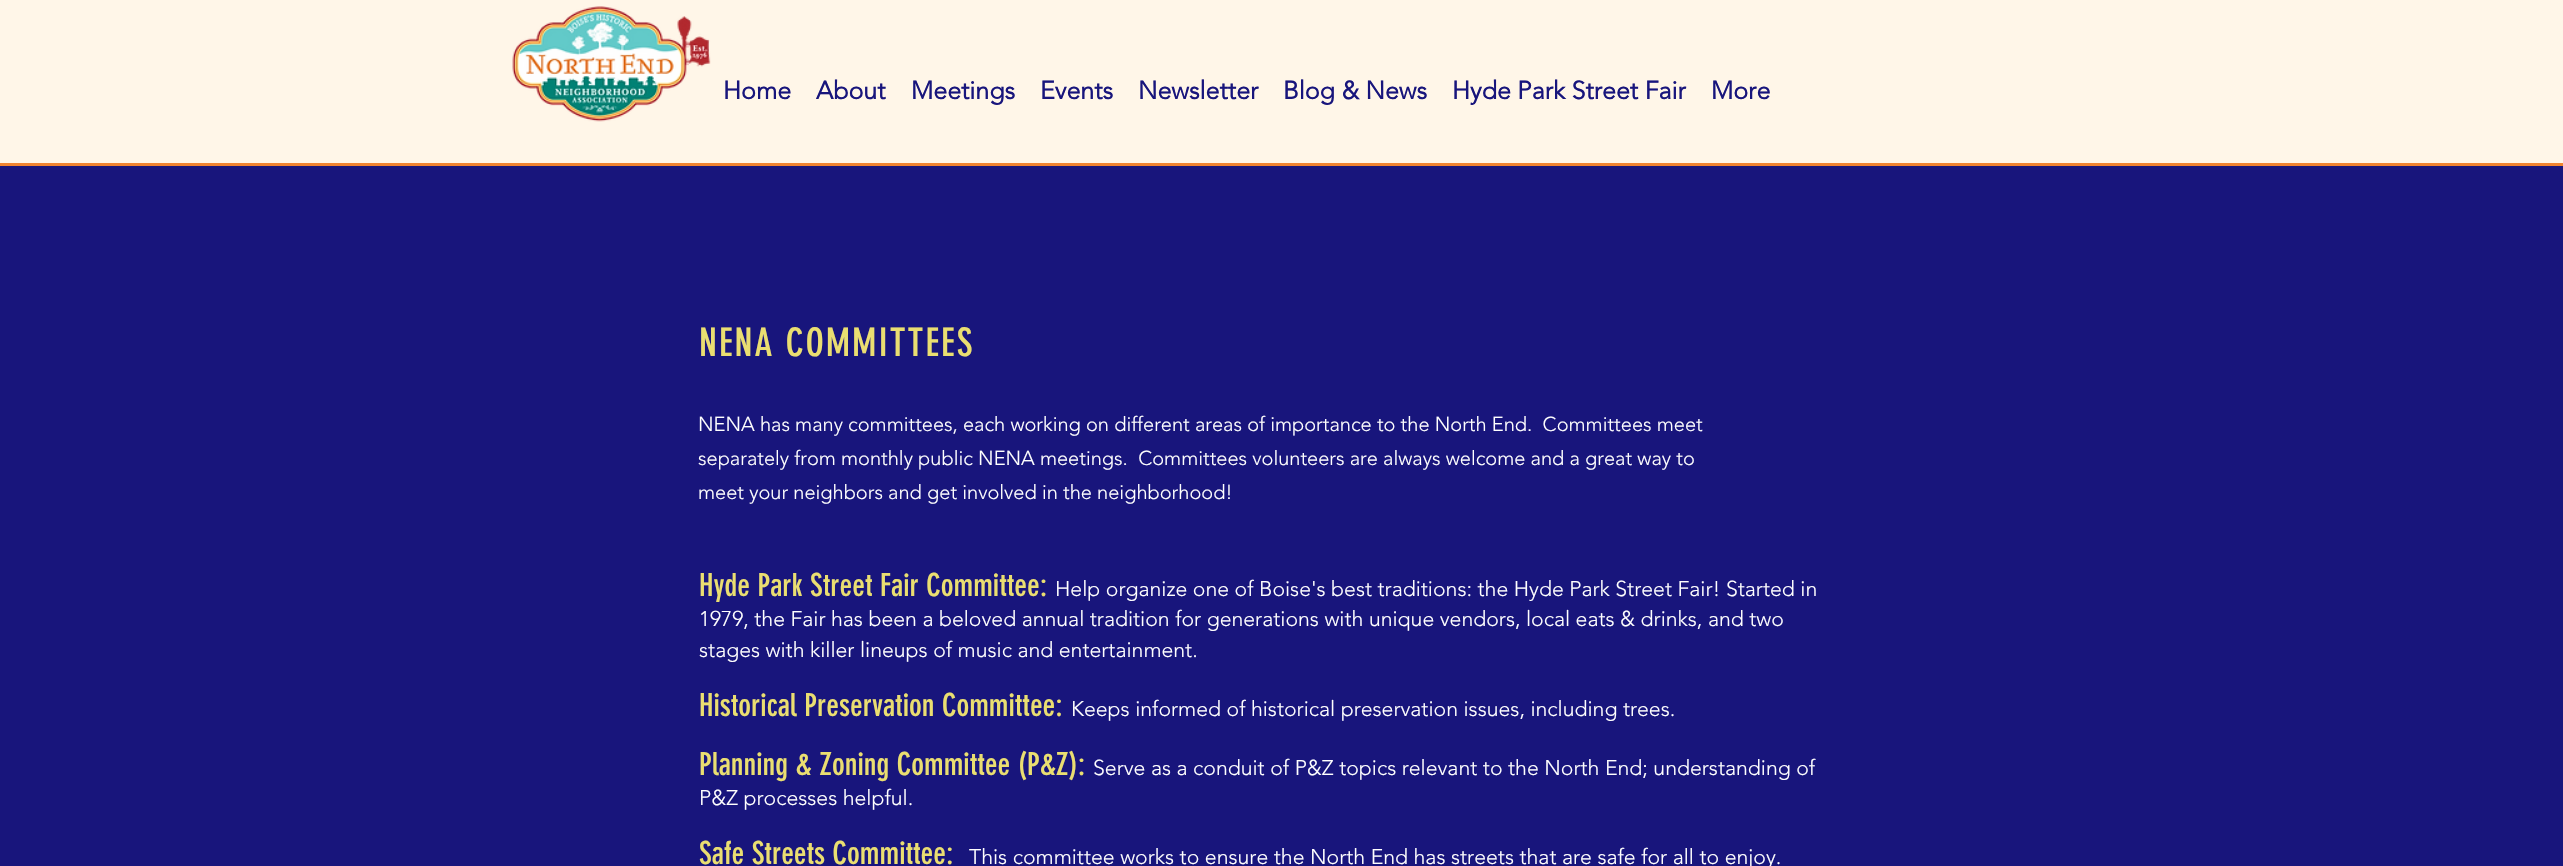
static SkFont makeFont(const char* family, int weight, float size, bool italic = false) {
  SkFontStyle style(weight, SkFontStyle::kNormal_Width,
    italic ? SkFontStyle::kItalic_Slant : SkFontStyle::kUpright_Slant);
  SkFont result(fontMgr->matchFamilyStyle(family, style), size);
  result.setSubpixel(true);
  return result;
}

static void text(SkCanvas* c, const char* s, float x, float y, const SkFont& font, SkColor color) {
  SkPaint ink(SkColor4f::FromColor(color));
  ink.setAntiAlias(true);
  c->drawString(s, x, y, font, ink);
}

static void spacedText(SkCanvas* c, const char* s, float x, float y, const SkFont& font, const SkPaint& ink, float letter, float word) {
  std::vector<SkGlyphID> glyphs(font.countText(s, strlen(s), SkTextEncoding::kUTF8));
  std::vector<float> xs(glyphs.size());
  font.textToGlyphs(s, strlen(s), SkTextEncoding::kUTF8, glyphs);
  font.getXPos(glyphs, xs, x);
  float extra = 0;
  for (size_t i = 0; i < glyphs.size(); i++) {
    xs[i] += extra;
    extra += letter + word * (glyphs[i] == font.unicharToGlyph(' '));
  }
  c->drawTextBlob(SkTextBlob::MakeFromPosHGlyphs(glyphs, xs, y, font), 0, 0, ink);
}

static void box(SkCanvas* c, float l, float t, float r, float b, SkColor color) {
  SkPaint ink(SkColor4f::FromColor(color));
  ink.setAntiAlias(true);
  c->drawRect(SkRect::MakeLTRB(l, t, r, b), ink);
}

static void picture(SkCanvas* c, const char* path, float l, float t, float r, float b) {
  auto image = SkImages::DeferredFromEncodedData(SkData::MakeFromFileName(path));
  c->drawImageRect(image, SkRect::MakeLTRB(l, t, r, b), SkSamplingOptions());
}

void draw(SkCanvas* c) {
  SkPaint paint;
  paint.setAntiAlias(true);
  c->clear(0xff18157c);
  box(c, 0, 0, 2563, 163, 0xfffff6e8);
  box(c, 0, 163, 2563, 166, 0xfff08430);
  picture(c, "img_01.png", 512, 6, 711, 122);
  SkFont face1 = makeFont("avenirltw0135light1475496", 700, 25);
  text(c, "Home", 723, 99, face1, 0xff18157c);
  text(c, "About", 816, 99, face1, 0xff18157c);
  text(c, "Meetings", 911, 99, face1, 0xff18157c);
  text(c, "Events", 1040, 99, face1, 0xff18157c);
  text(c, "Newsletter", 1138, 99, face1, 0xff18157c);
  text(c, "Blog & News", 1283, 99, face1, 0xff18157c);
  text(c, "Hyde Park Street Fair", 1452, 99, face1, 0xff18157c);
  text(c, "More", 1711, 99, face1, 0xff18157c);
  SkFont face2 = makeFont("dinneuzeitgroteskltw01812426", 400, 38.75f);
  paint.setColor(0xffeade71);
  spacedText(c, "NENA COMMITTEES", 699, 356, face2, paint, 2, 0);
  SkFont face3 = makeFont("avenirltw0135light1475496", 300, 20);
  text(c, "NENA has many committees, each working on different areas of importance to the North End.  Committees meet", 698, 431, face3, 0xffffffff);
  text(c, "separately from monthly public NENA meetings.  Committees volunteers are always welcome and a great way to", 698, 465, face3, 0xffffffff);
  text(c, "meet your neighbors and get involved in the neighborhood!", 698, 499, face3, 0xffffffff);
  SkFont face4 = makeFont("dinneuzeitgroteskltw01812426", 400, 31.25f);
  text(c, "Hyde Park Street Fair Committee:", 699, 596, face4, 0xffeade71);
  SkFont face5 = makeFont("avenirltw0135light1475496", 300, 21.25f);
  text(c, "Help organize one of Boise's best traditions: the Hyde Park Street Fair! Started in", 1055, 596, face5, 0xffffffff);
  text(c, "1979, the Fair has been a beloved annual tradition for generations with unique vendors, local eats & drinks, and two", 699, 626, face5, 0xffffffff);
  text(c, "stages with killer lineups of music and entertainment.", 699, 657, face5, 0xffffffff);
  text(c, "Historical Preservation Committee:", 699, 716, face4, 0xffeade71);
  text(c, "Keeps informed of historical preservation issues, including trees.", 1071, 716, face5, 0xffffffff);
  text(c, "Planning & Zoning Committee (P&Z):", 699, 775, face4, 0xffeade71);
  text(c, "Serve as a conduit of P&Z topics relevant to the North End; understanding of", 1093, 775, face5, 0xffffffff);
  text(c, "P&Z processes helpful.", 699, 805, face5, 0xffffffff);
  text(c, "Safe Streets Committee:", 699, 864, face4, 0xffeade71);
  text(c, "This committee works to ensure the North End has streets that are safe for all to enjoy.", 969, 864, face5, 0xffffffff);
}
